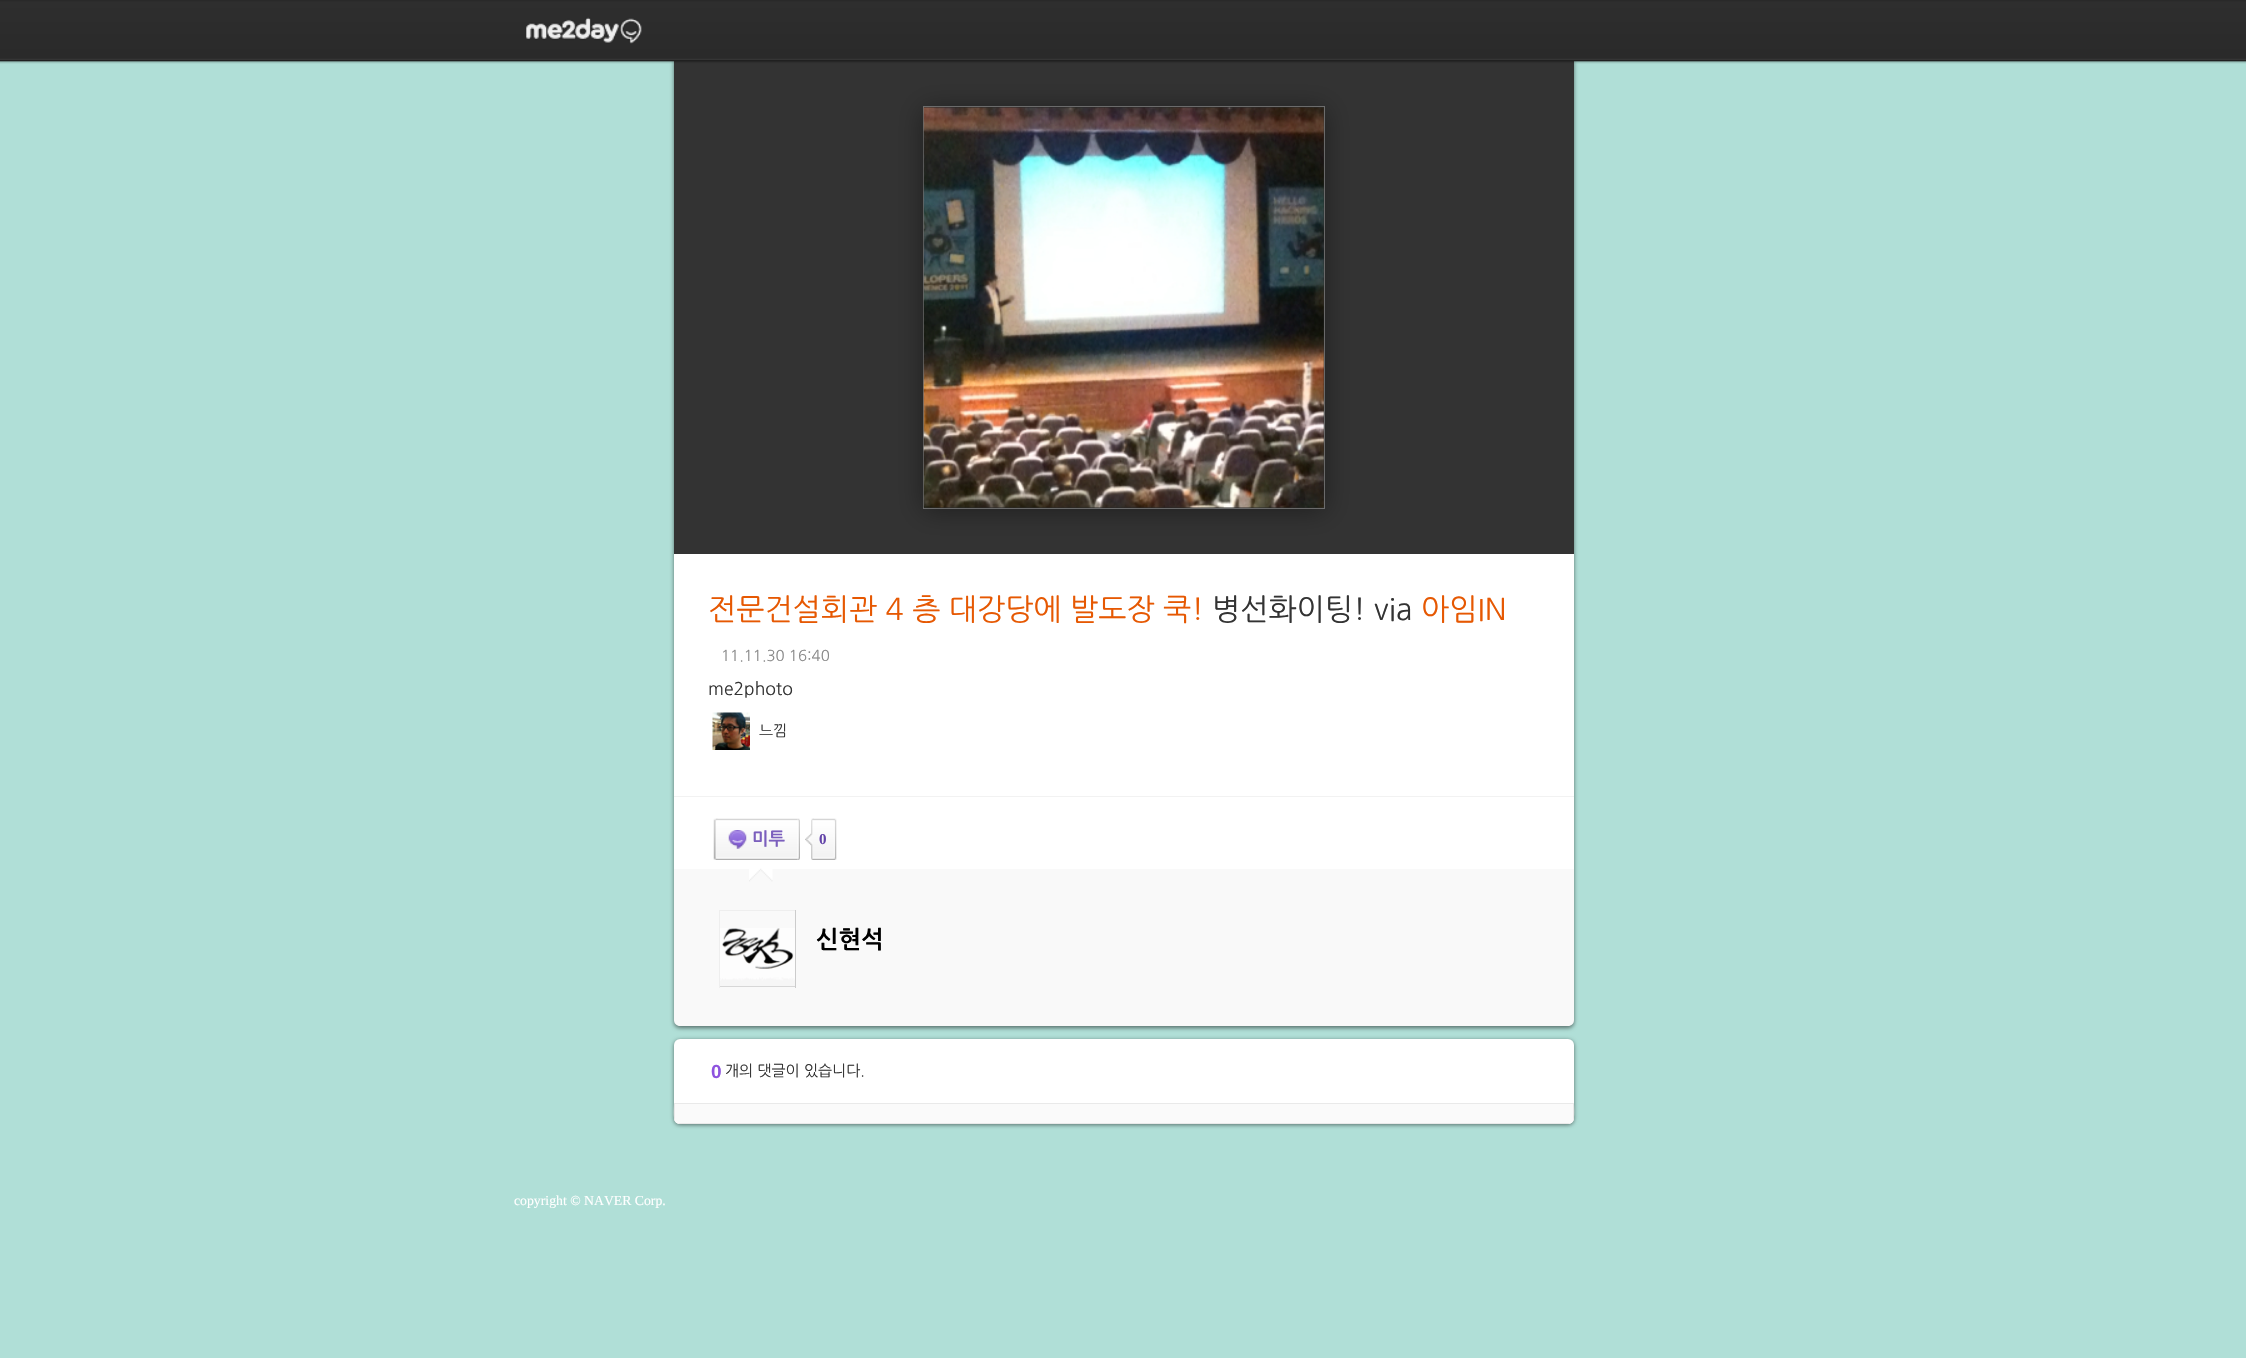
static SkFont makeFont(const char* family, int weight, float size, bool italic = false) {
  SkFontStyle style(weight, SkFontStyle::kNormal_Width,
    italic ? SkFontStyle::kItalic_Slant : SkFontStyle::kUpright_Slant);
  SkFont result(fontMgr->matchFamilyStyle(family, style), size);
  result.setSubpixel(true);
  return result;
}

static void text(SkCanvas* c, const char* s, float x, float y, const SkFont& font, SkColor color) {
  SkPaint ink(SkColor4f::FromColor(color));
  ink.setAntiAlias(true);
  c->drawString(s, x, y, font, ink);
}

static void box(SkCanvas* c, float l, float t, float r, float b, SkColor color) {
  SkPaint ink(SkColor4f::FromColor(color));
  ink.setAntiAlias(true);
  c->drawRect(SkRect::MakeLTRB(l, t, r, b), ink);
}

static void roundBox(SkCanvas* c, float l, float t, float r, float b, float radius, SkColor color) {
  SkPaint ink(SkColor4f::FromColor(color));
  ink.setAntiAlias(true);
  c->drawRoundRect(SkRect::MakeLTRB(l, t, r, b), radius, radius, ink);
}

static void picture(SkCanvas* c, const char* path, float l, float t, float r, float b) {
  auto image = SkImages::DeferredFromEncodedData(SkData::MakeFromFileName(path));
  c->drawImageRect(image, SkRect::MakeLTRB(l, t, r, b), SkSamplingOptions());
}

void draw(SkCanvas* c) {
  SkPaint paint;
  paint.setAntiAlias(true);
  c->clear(0xffb0dfd7);
  paint.setColor(0x80000000);
  paint.setMaskFilter(SkMaskFilter::MakeBlur(kNormal_SkBlurStyle, 2));
  c->drawRoundRect(SkRect::MakeLTRB(674, 58, 1574, 1028), 6, 6, paint);
  paint.setMaskFilter(nullptr);
  box(c, 674, 61, 1574, 554, 0xff333333);
  picture(c, "img_01.png", 0, 0, 2246, 64);
  picture(c, "img_02.png", 526, 17, 642, 44);
  paint.setColor(0x66000000);
  paint.setMaskFilter(SkMaskFilter::MakeBlur(kNormal_SkBlurStyle, 12.5f));
  c->drawRect(SkRect::MakeLTRB(923, 109, 1325, 511), paint);
  paint.setMaskFilter(nullptr);
  paint.setStyle(SkPaint::kStroke_Style);
  paint.setStrokeWidth(1);
  paint.setColor(0x4dffffff);
  c->drawRect(SkRect::MakeLTRB(923.5f, 106.5f, 1324.5f, 508.5f), paint);
  picture(c, "img_03.png", 923, 107, 1324, 508);
  box(c, 674, 554, 1574, 796, 0xffffffff);
  SkFont face1 = makeFont("NanumGothic", 400, 30);
  text(c, "전문건설회관 4 층 대강당에 발도장 쿡!", 708, 620, face1, 0xffe65802);
  text(c, "병선화이팅! via", 1212, 620, face1, 0xff333333);
  text(c, "아임IN", 1421, 620, face1, 0xffe65802);
  SkFont face2 = makeFont("NanumGothic", 400, 15);
  text(c, "11.11.30 16:40", 721, 661, face2, 0xff888888);
  SkFont face3 = makeFont("NanumGothic", 400, 17.5f);
  text(c, "me2photo", 708, 695, face3, 0xff333333);
  picture(c, "img_04.png", 712, 712, 750, 750);
  text(c, "느낌", 759, 736, face2, 0xff333333);
  box(c, 674, 797, 1574, 869, 0xffffffff);
  box(c, 674, 796, 1574, 797, 0xfff2f2f2);
  picture(c, "img_05.png", 713, 818, 718, 860);
  picture(c, "img_06.png", 797, 818, 800, 860);
  picture(c, "img_07.png", 716, 818, 798, 860);
  picture(c, "img_08.png", 728, 830, 747, 849);
  SkFont face4 = makeFont("NanumGothic", 700, 17.5f);
  text(c, "미투", 752, 845, face4, 0xff7b5fbd);
  picture(c, "img_09.png", 805, 818, 814, 860);
  picture(c, "img_10.png", 812, 818, 837, 860);
  SkFont face5 = makeFont("Liberation Serif", 700, 15);
  text(c, "0", 819, 844, face5, 0xff6344a9);
  paint.setStyle(SkPaint::kFill_Style);
  paint.setColor(0xfff9f9f9);
  c->drawPath(SkPathBuilder().moveTo(674, 869).lineTo(1574, 869).lineTo(1574, 1020).cubicTo(1574, 1023.5f, 1571.5f, 1026, 1568, 1026).lineTo(680, 1026).cubicTo(676.5f, 1026, 674, 1023.5f, 674, 1020).close().detach(), paint);
  picture(c, "img_11.png", 749, 868, 773, 882);
  box(c, 719, 910, 796, 911, 0xffeeeeee);
  box(c, 795, 910, 796, 988, 0xffcccccc);
  box(c, 719, 986, 796, 987, 0xffcccccc);
  box(c, 719, 910, 720, 988, 0xffeeeeee);
  picture(c, "img_12.png", 720, 928, 795, 987);
  SkFont face6 = makeFont("NanumGothic", 700, 24);
  text(c, "신현석", 816, 948, face6, 0xff000000);
  paint.setColor(0x80000000);
  paint.setMaskFilter(SkMaskFilter::MakeBlur(kNormal_SkBlurStyle, 2));
  c->drawRoundRect(SkRect::MakeLTRB(674, 1040, 1574, 1125), 6, 6, paint);
  paint.setMaskFilter(nullptr);
  roundBox(c, 674, 1039, 1574, 1124, 6, 0xffffffff);
  SkFont face7 = makeFont("Liberation Sans", 700, 19);
  text(c, "0", 711, 1078, face7, 0xff8e53df);
  text(c, "개의 댓글이 있습니다.", 725, 1076, face2, 0xff333333);
  paint.setColor(0xfffafafa);
  c->drawPath(SkPathBuilder().moveTo(674, 1103).lineTo(1574, 1103).lineTo(1574, 1118).cubicTo(1574, 1121.5f, 1571.5f, 1124, 1568, 1124).lineTo(680, 1124).cubicTo(676.5f, 1124, 674, 1121.5f, 674, 1118).close().detach(), paint);
  paint.setColor(0xffe9e9e9);
  c->drawPath(SkPathBuilder(SkPathFillType::kEvenOdd).moveTo(675, 1104).lineTo(1573, 1104).lineTo(1573, 1121).cubicTo(1575, 1118, 1574, 1107, 1574, 1103).lineTo(674, 1103).cubicTo(674, 1107, 673, 1118, 675, 1121).close().moveTo(1568, 1124).lineTo(1571, 1123).lineTo(677, 1123).lineTo(680, 1124).close().detach(), paint);
  SkFont face8 = makeFont("Liberation Serif", 400, 13.75f);
  text(c, "copyright © NAVER Corp.", 514, 1205, face8, 0xffffffff);
}
